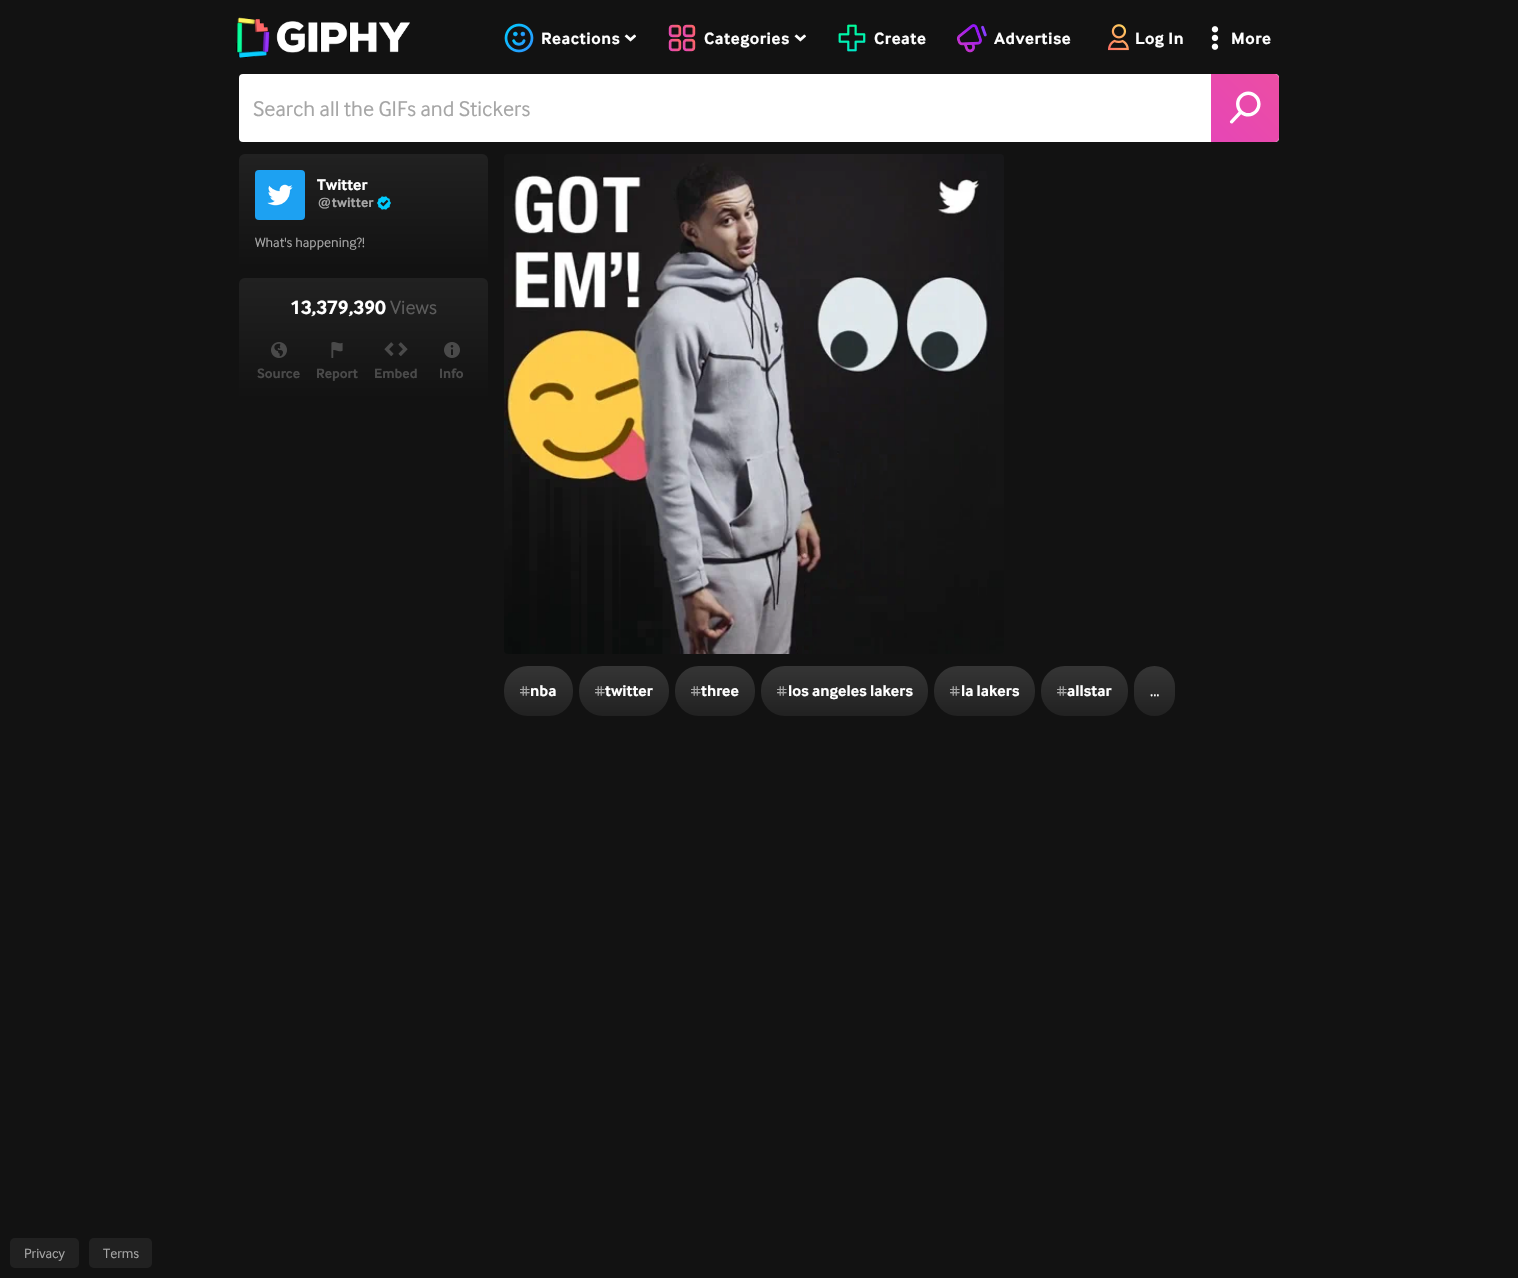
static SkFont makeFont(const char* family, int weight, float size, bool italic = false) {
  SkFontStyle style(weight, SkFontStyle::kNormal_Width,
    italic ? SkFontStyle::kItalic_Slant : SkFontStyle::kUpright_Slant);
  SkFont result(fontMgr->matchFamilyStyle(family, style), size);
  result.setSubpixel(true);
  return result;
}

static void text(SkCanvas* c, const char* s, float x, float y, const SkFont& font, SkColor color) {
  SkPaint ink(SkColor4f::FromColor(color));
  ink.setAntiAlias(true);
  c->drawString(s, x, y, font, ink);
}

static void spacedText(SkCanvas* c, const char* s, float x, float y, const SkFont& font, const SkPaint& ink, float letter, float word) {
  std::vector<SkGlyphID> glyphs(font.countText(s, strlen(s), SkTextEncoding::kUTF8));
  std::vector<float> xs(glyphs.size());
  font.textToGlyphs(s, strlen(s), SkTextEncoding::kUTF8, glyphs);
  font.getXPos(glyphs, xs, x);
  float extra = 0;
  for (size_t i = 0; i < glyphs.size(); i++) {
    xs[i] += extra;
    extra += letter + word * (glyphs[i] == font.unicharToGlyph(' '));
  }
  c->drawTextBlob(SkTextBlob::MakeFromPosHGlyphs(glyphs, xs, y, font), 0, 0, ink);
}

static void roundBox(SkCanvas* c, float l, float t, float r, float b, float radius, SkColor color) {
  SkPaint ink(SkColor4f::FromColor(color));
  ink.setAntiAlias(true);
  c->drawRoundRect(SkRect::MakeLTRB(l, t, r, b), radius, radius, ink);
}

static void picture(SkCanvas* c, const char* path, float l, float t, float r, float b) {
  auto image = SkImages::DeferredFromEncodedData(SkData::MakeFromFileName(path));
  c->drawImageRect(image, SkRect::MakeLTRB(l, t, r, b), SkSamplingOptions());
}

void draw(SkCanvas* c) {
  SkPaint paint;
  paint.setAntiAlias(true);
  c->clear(0xff121212);
  picture(c, "img_01.png", 236, 17, 410, 58);
  picture(c, "img_02.png", 504, 23, 534, 53);
  SkFont face1 = makeFont("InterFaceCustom", 700, 17);
  paint.setColor(0xffffffff);
  spacedText(c, "Reactions", 541, 44, face1, paint, 0.5f, 0);
  picture(c, "img_03.png", 624, 34, 636, 42);
  picture(c, "img_04.png", 668, 24, 696, 52);
  spacedText(c, "Categories", 704, 44, face1, paint, 0.5f, 0);
  picture(c, "img_05.png", 794, 34, 806, 42);
  picture(c, "img_06.png", 838, 24, 866, 52);
  spacedText(c, "Create", 874, 44, face1, paint, 0.5f, 0);
  picture(c, "img_07.png", 956, 24, 987, 53);
  spacedText(c, "Advertise", 994, 44, face1, paint, 0.5f, 0);
  picture(c, "img_08.png", 1108, 24, 1129, 51);
  spacedText(c, "Log In", 1135, 44, face1, paint, 0.5f, 0);
  picture(c, "img_09.png", 1211, 26, 1219, 50);
  spacedText(c, "More", 1231, 44, face1, paint, 0.5f, 0);
  roundBox(c, 239, 74, 1279, 142, 4, 0xffffffff);
  SkFont face2 = makeFont("InterFaceCustom", 400, 22);
  text(c, "Search all the GIFs and Stickers", 253, 116, face2, 0xffa6a6a6);
  {
    const SkColor colors[] = {0xffe646b6, 0xffff6666, 0xffe646b6};
    const float stops[] = {0, 0.5f, 1};
    const SkPoint ends[] = {{1466, 397}, {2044, -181}};
    paint.setShader(SkGradientShader::MakeLinear(ends, colors, stops, 3, SkTileMode::kClamp));
    paint.setAlpha(255);
  }
  c->drawPath(SkPathBuilder().moveTo(1211, 74).lineTo(1275, 74).cubicTo(1277, 74, 1279, 76, 1279, 78).lineTo(1279, 138).cubicTo(1279, 140, 1277, 142, 1275, 142).lineTo(1211, 142).close().detach(), paint);
  picture(c, "img_10.png", 1229, 91, 1261, 124);
  {
    const SkColor colors[] = {0xff121212, 0xff212121};
    const float stops[] = {0, 1};
    const SkPoint ends[] = {{364, 268}, {364, 154}};
    paint.setShader(SkGradientShader::MakeLinear(ends, colors, stops, 2, SkTileMode::kClamp));
    paint.setAlpha(255);
  }
  c->drawRoundRect(SkRect::MakeLTRB(239, 154, 488, 268), 6, 6, paint);
  picture(c, "img_11.png", 255, 170, 305, 220);
  SkFont face3 = makeFont("InterFaceCustom", 700, 16);
  text(c, "Twitter", 317, 190, face3, 0xffffffff);
  SkFont face4 = makeFont("InterFaceCustom", 700, 14);
  text(c, "@twitter", 317, 207, face4, 0xffa6a6a6);
  picture(c, "img_12.png", 377, 196, 391, 210);
  SkFont face5 = makeFont("InterFaceCustom", 400, 14);
  text(c, "What's happening?!", 255, 247, face5, 0xffa6a6a6);
  {
    const SkColor colors[] = {0xff121212, 0xff212121};
    const float stops[] = {0, 1};
    const SkPoint ends[] = {{364, 400}, {364, 278}};
    paint.setShader(SkGradientShader::MakeLinear(ends, colors, stops, 2, SkTileMode::kClamp));
    paint.setAlpha(255);
  }
  c->drawRoundRect(SkRect::MakeLTRB(239, 278, 488, 400), 6, 6, paint);
  SkFont face6 = makeFont("InterFaceCustom", 700, 20);
  text(c, "13,379,390", 290, 314, face6, 0xffffffff);
  SkFont face7 = makeFont("InterFaceCustom", 400, 20);
  text(c, "Views", 390, 314, face7, 0xff5c5c5c);
  picture(c, "img_13.png", 271, 342, 287, 358);
  text(c, "Source", 257, 378, face4, 0xff4a4a4a);
  picture(c, "img_14.png", 331, 342, 343, 358);
  text(c, "Report", 316, 378, face4, 0xff4a4a4a);
  picture(c, "img_15.png", 384, 342, 408, 356);
  text(c, "Embed", 374, 378, face4, 0xff4a4a4a);
  picture(c, "img_16.png", 444, 342, 460, 358);
  text(c, "Info", 439, 378, face4, 0xff4a4a4a);
  picture(c, "img_17.png", 504, 154, 1004, 654);
  {
    const SkColor colors[] = {0xff353535, 0xff212121};
    const float stops[] = {0, 1};
    const SkPoint ends[] = {{539, 666}, {539, 716}};
    paint.setShader(SkGradientShader::MakeLinear(ends, colors, stops, 2, SkTileMode::kClamp));
    paint.setAlpha(255);
  }
  c->drawRoundRect(SkRect::MakeLTRB(504, 666, 573, 716), 24, 24, paint);
  SkFont face8 = makeFont("InterFaceCustom", 400, 16);
  text(c, "#", 520, 697, face8, 0xffa6a6a6);
  text(c, "nba", 530, 696, face3, 0xffffffff);
  {
    const SkColor colors[] = {0xff353535, 0xff212121};
    const float stops[] = {0, 1};
    const SkPoint ends[] = {{624, 666}, {624, 716}};
    paint.setShader(SkGradientShader::MakeLinear(ends, colors, stops, 2, SkTileMode::kClamp));
    paint.setAlpha(255);
  }
  c->drawRoundRect(SkRect::MakeLTRB(579, 666, 669, 716), 24, 24, paint);
  text(c, "#", 595, 697, face8, 0xffa6a6a6);
  text(c, "twitter", 605, 696, face3, 0xffffffff);
  {
    const SkColor colors[] = {0xff353535, 0xff212121};
    const float stops[] = {0, 1};
    const SkPoint ends[] = {{715, 666}, {715, 716}};
    paint.setShader(SkGradientShader::MakeLinear(ends, colors, stops, 2, SkTileMode::kClamp));
    paint.setAlpha(255);
  }
  c->drawRoundRect(SkRect::MakeLTRB(675, 666, 755, 716), 24, 24, paint);
  text(c, "#", 691, 697, face8, 0xffa6a6a6);
  text(c, "three", 701, 696, face3, 0xffffffff);
  {
    const SkColor colors[] = {0xff353535, 0xff212121};
    const float stops[] = {0, 1};
    const SkPoint ends[] = {{845, 666}, {845, 716}};
    paint.setShader(SkGradientShader::MakeLinear(ends, colors, stops, 2, SkTileMode::kClamp));
    paint.setAlpha(255);
  }
  c->drawRoundRect(SkRect::MakeLTRB(761, 666, 928, 716), 24, 24, paint);
  text(c, "#", 777, 697, face8, 0xffa6a6a6);
  text(c, "los angeles lakers", 788, 696, face3, 0xffffffff);
  {
    const SkColor colors[] = {0xff353535, 0xff212121};
    const float stops[] = {0, 1};
    const SkPoint ends[] = {{985, 666}, {985, 716}};
    paint.setShader(SkGradientShader::MakeLinear(ends, colors, stops, 2, SkTileMode::kClamp));
    paint.setAlpha(255);
  }
  c->drawRoundRect(SkRect::MakeLTRB(934, 666, 1035, 716), 24, 24, paint);
  text(c, "#", 950, 697, face8, 0xffa6a6a6);
  text(c, "la lakers", 961, 696, face3, 0xffffffff);
  {
    const SkColor colors[] = {0xff353535, 0xff212121};
    const float stops[] = {0, 1};
    const SkPoint ends[] = {{1085, 666}, {1085, 716}};
    paint.setShader(SkGradientShader::MakeLinear(ends, colors, stops, 2, SkTileMode::kClamp));
    paint.setAlpha(255);
  }
  c->drawRoundRect(SkRect::MakeLTRB(1041, 666, 1128, 716), 24, 24, paint);
  text(c, "#", 1057, 697, face8, 0xffa6a6a6);
  text(c, "allstar", 1067, 696, face3, 0xffffffff);
  {
    const SkColor colors[] = {0xff353535, 0xff212121};
    const float stops[] = {0, 1};
    const SkPoint ends[] = {{1155, 666}, {1155, 716}};
    paint.setShader(SkGradientShader::MakeLinear(ends, colors, stops, 2, SkTileMode::kClamp));
    paint.setAlpha(255);
  }
  c->drawRoundRect(SkRect::MakeLTRB(1134, 666, 1175, 716), 20.5f, 20.5f, paint);
  text(c, "...", 1150, 696, face8, 0xffffffff);
  roundBox(c, 10, 1238, 79, 1268, 5, 0xff212121);
  text(c, "Privacy", 24, 1258, face5, 0xffa6a6a6);
  roundBox(c, 89, 1238, 152, 1268, 5, 0xff212121);
  text(c, "Terms", 103, 1258, face5, 0xffa6a6a6);
}
